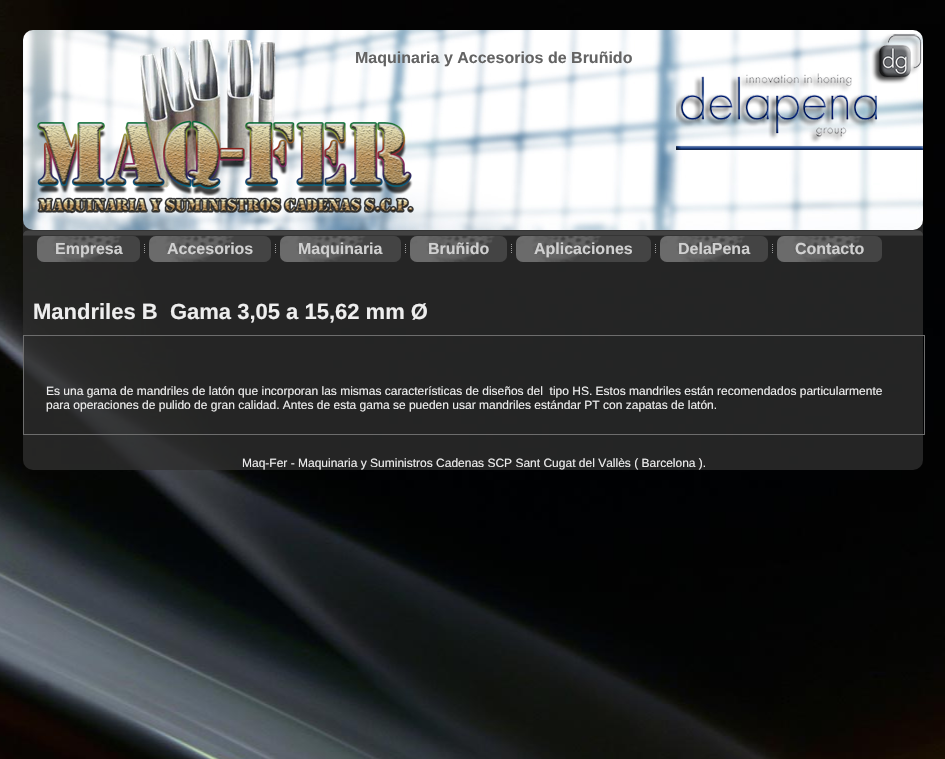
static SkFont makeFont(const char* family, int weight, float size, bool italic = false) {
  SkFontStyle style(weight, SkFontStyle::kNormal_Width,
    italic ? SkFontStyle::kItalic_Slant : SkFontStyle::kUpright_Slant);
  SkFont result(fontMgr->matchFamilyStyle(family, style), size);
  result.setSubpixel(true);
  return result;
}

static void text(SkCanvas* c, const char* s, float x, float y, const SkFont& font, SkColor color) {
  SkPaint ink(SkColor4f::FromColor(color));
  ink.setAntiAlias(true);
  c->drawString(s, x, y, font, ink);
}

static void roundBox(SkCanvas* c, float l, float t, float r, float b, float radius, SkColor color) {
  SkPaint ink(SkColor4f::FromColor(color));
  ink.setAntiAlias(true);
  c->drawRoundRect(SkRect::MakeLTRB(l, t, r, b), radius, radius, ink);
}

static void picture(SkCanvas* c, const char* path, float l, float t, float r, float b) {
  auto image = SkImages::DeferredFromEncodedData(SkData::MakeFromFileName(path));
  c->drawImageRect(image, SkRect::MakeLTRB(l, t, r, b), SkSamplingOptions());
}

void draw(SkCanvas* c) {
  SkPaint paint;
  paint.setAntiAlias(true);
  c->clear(0xffffffff);
  picture(c, "img_01.png", 0, 0, 945, 759);
  roundBox(c, 23, 30, 923, 470, 10, 0xcc2d2d2d);
  picture(c, "img_02.png", 23, 30, 923, 230);
  SkFont face1 = makeFont("Liberation Sans", 700, 16);
  text(c, "Maquinaria y Accesorios de Bruñido", 355, 63, face1, 0xff636363);
  {
    const SkColor colors[] = {0xff2b2b2b, 0xff424242, 0xff424242, 0xff2b2b2b};
    const float stops[] = {0, 0.2f, 0.8f, 1};
    const SkPoint ends[] = {{473, 230}, {473, 236}};
    paint.setShader(SkGradientShader::MakeLinear(ends, colors, stops, 4, SkTileMode::kClamp));
    paint.setAlpha(255);
  }
  c->drawPath(SkPathBuilder().moveTo(29, 230).lineTo(917, 230).cubicTo(920.5f, 230, 923, 232.5f, 923, 236).lineTo(23, 236).cubicTo(23, 232.5f, 25.5f, 230, 29, 230).close().detach(), paint);
  roundBox(c, 37, 236, 140, 262, 7, 0xff414141);
  picture(c, "img_03.png", 37, 236, 140, 262);
  text(c, "Empresa", 55, 254, face1, 0xffd0d0d0);
  picture(c, "img_04.png", 144, 244, 145, 253);
  roundBox(c, 149, 236, 271, 262, 7, 0xff414141);
  picture(c, "img_05.png", 149, 236, 271, 262);
  text(c, "Accesorios", 167, 254, face1, 0xffd0d0d0);
  picture(c, "img_06.png", 275, 244, 276, 253);
  roundBox(c, 280, 236, 401, 262, 7, 0xff414141);
  picture(c, "img_07.png", 280, 236, 401, 262);
  text(c, "Maquinaria", 298, 254, face1, 0xffd0d0d0);
  picture(c, "img_08.png", 405, 244, 406, 253);
  roundBox(c, 410, 236, 507, 262, 7, 0xff414141);
  picture(c, "img_09.png", 410, 236, 507, 262);
  text(c, "Bruñido", 428, 254, face1, 0xffd0d0d0);
  picture(c, "img_08.png", 511, 244, 512, 253);
  roundBox(c, 516, 236, 651, 262, 7, 0xff414141);
  picture(c, "img_10.png", 516, 236, 651, 262);
  text(c, "Aplicaciones", 534, 254, face1, 0xffd0d0d0);
  picture(c, "img_11.png", 655, 244, 656, 253);
  roundBox(c, 660, 236, 768, 262, 7, 0xff414141);
  picture(c, "img_12.png", 660, 236, 768, 262);
  text(c, "DelaPena", 678, 254, face1, 0xffd0d0d0);
  picture(c, "img_08.png", 772, 244, 773, 253);
  roundBox(c, 777, 236, 882, 262, 7, 0xff414141);
  picture(c, "img_13.png", 777, 236, 882, 262);
  text(c, "Contacto", 795, 254, face1, 0xffd0d0d0);
  SkFont face2 = makeFont("Liberation Sans", 700, 22);
  text(c, "Mandriles B  Gama 3,05 a 15,62 mm Ø", 33, 319, face2, 0xffeeeeee);
  paint.setStyle(SkPaint::kStroke_Style);
  paint.setStrokeWidth(1);
  paint.setShader(nullptr);
  paint.setColor(0xff6d6d6d);
  c->drawRect(SkRect::MakeLTRB(23.5f, 335.5f, 924.5f, 434.5f), paint);
  SkFont face3 = makeFont("Liberation Sans", 400, 12);
  text(c, "Es una gama de mandriles de latón que incorporan las mismas características de diseños del  tipo HS. Estos mandriles están recomendados particularmente", 46, 395, face3, 0xffeeeeee);
  text(c, "para operaciones de pulido de gran calidad. Antes de esta gama se pueden usar mandriles estándar PT con zapatas de latón.", 46, 409, face3, 0xffeeeeee);
  text(c, "Maq-Fer - Maquinaria y Suministros Cadenas SCP Sant Cugat del Vallès ( Barcelona ).", 242, 467, face3, 0xffeeeeee);
}
